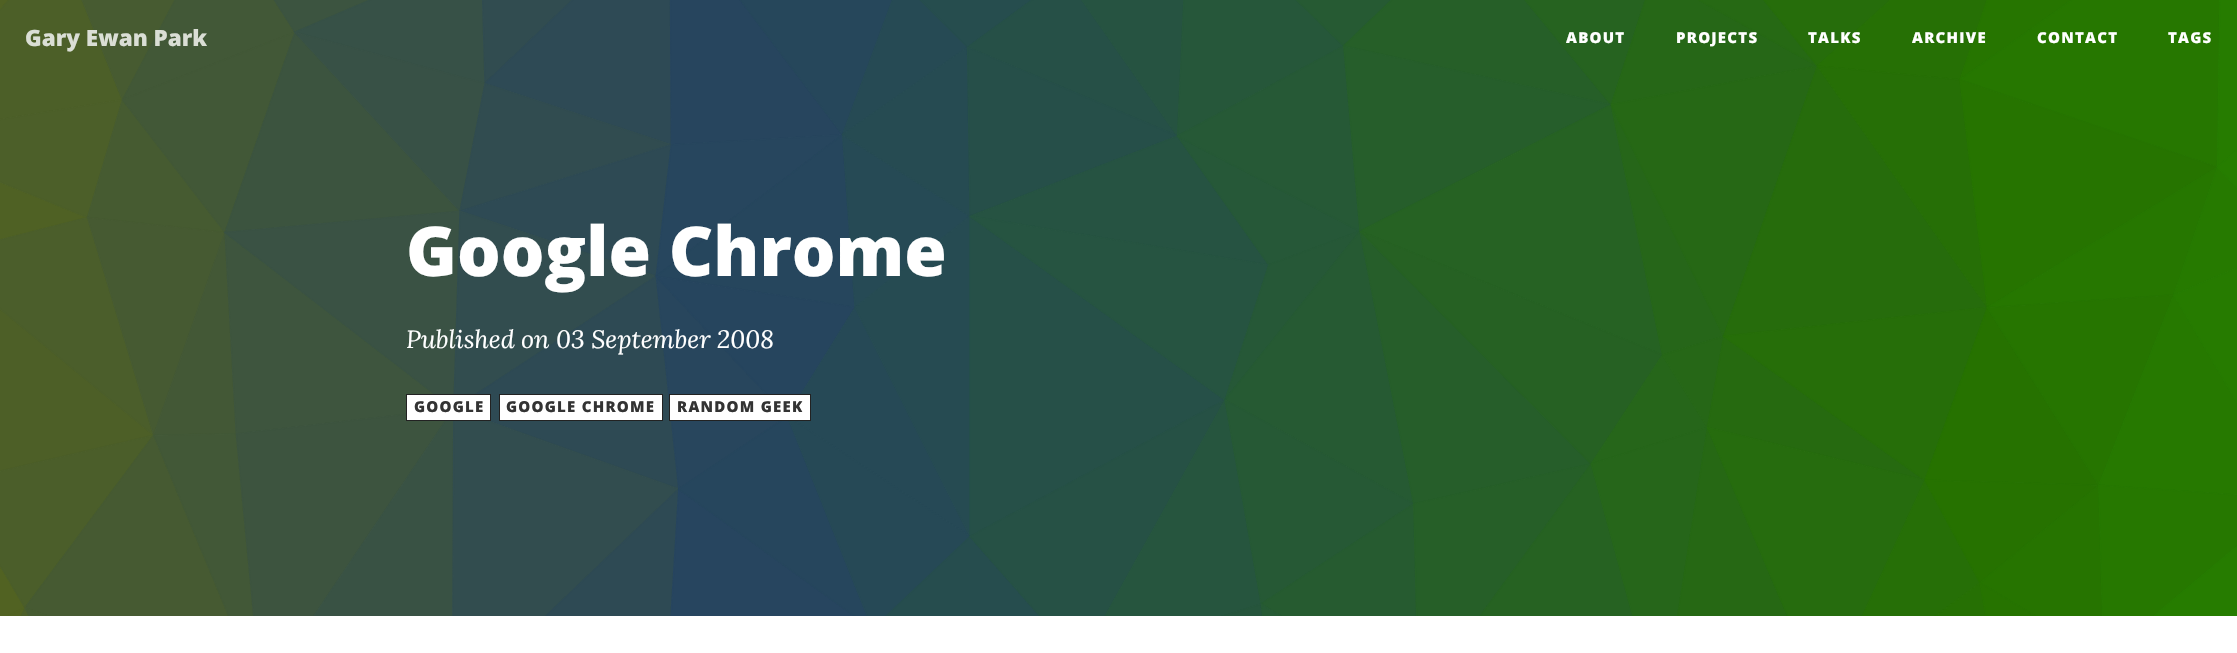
static SkFont makeFont(const char* family, int weight, float size, bool italic = false) {
  SkFontStyle style(weight, SkFontStyle::kNormal_Width,
    italic ? SkFontStyle::kItalic_Slant : SkFontStyle::kUpright_Slant);
  SkFont result(fontMgr->matchFamilyStyle(family, style), size);
  result.setSubpixel(true);
  return result;
}

static void text(SkCanvas* c, const char* s, float x, float y, const SkFont& font, SkColor color) {
  SkPaint ink(SkColor4f::FromColor(color));
  ink.setAntiAlias(true);
  c->drawString(s, x, y, font, ink);
}

static void spacedText(SkCanvas* c, const char* s, float x, float y, const SkFont& font, const SkPaint& ink, float letter, float word) {
  std::vector<SkGlyphID> glyphs(font.countText(s, strlen(s), SkTextEncoding::kUTF8));
  std::vector<float> xs(glyphs.size());
  font.textToGlyphs(s, strlen(s), SkTextEncoding::kUTF8, glyphs);
  font.getXPos(glyphs, xs, x);
  float extra = 0;
  for (size_t i = 0; i < glyphs.size(); i++) {
    xs[i] += extra;
    extra += letter + word * (glyphs[i] == font.unicharToGlyph(' '));
  }
  c->drawTextBlob(SkTextBlob::MakeFromPosHGlyphs(glyphs, xs, y, font), 0, 0, ink);
}

static void picture(SkCanvas* c, const char* path, float l, float t, float r, float b) {
  auto image = SkImages::DeferredFromEncodedData(SkData::MakeFromFileName(path));
  c->drawImageRect(image, SkRect::MakeLTRB(l, t, r, b), SkSamplingOptions());
}

void draw(SkCanvas* c) {
  SkPaint paint;
  paint.setAntiAlias(true);
  c->clear(0xffffffff);
  picture(c, "img_01.png", 0, 0, 2237, 616);
  SkFont face1 = makeFont("Open Sans", 800, 22.5f);
  text(c, "Gary Ewan Park", 25, 46, face1, 0xffdaded5);
  SkFont face2 = makeFont("Open Sans", 800, 15);
  paint.setColor(0xffffffff);
  spacedText(c, "ABOUT", 1566, 43, face2, paint, 1.25f, 0);
  spacedText(c, "PROJECTS", 1676, 43, face2, paint, 1.25f, 0);
  spacedText(c, "TALKS", 1808, 43, face2, paint, 1.25f, 0);
  spacedText(c, "ARCHIVE", 1912, 43, face2, paint, 1.25f, 0);
  spacedText(c, "CONTACT", 2037, 43, face2, paint, 1.25f, 0);
  spacedText(c, "TAGS", 2168, 43, face2, paint, 1.25f, 0);
  SkFont face3 = makeFont("Open Sans", 800, 68.75f);
  text(c, "Google Chrome", 406, 276, face3, 0xffffffff);
  SkFont face4 = makeFont("Lora", 400, 25, true);
  text(c, "Published on 03 September 2008", 406, 348, face4, 0xffffffff);
  c->drawRect(SkRect::MakeLTRB(406.5f, 394.5f, 490.5f, 420.5f), paint);
  paint.setStyle(SkPaint::kStroke_Style);
  paint.setStrokeWidth(1);
  paint.setColor(0xff222222);
  c->drawRect(SkRect::MakeLTRB(406.5f, 394.5f, 490.5f, 420.5f), paint);
  paint.setStyle(SkPaint::kFill_Style);
  paint.setColor(0xff333333);
  spacedText(c, "GOOGLE", 414, 412, face2, paint, 1.25f, 0);
  paint.setColor(0xffffffff);
  c->drawRect(SkRect::MakeLTRB(499.5f, 394.5f, 662.5f, 420.5f), paint);
  paint.setStyle(SkPaint::kStroke_Style);
  paint.setColor(0xff222222);
  c->drawRect(SkRect::MakeLTRB(499.5f, 394.5f, 662.5f, 420.5f), paint);
  paint.setStyle(SkPaint::kFill_Style);
  paint.setColor(0xff333333);
  spacedText(c, "GOOGLE CHROME", 506, 412, face2, paint, 1.25f, 0);
  paint.setColor(0xffffffff);
  c->drawRect(SkRect::MakeLTRB(669.5f, 394.5f, 810.5f, 420.5f), paint);
  paint.setStyle(SkPaint::kStroke_Style);
  paint.setColor(0xff222222);
  c->drawRect(SkRect::MakeLTRB(669.5f, 394.5f, 810.5f, 420.5f), paint);
  paint.setStyle(SkPaint::kFill_Style);
  paint.setColor(0xff333333);
  spacedText(c, "RANDOM GEEK", 677, 412, face2, paint, 1.25f, 0);
}
